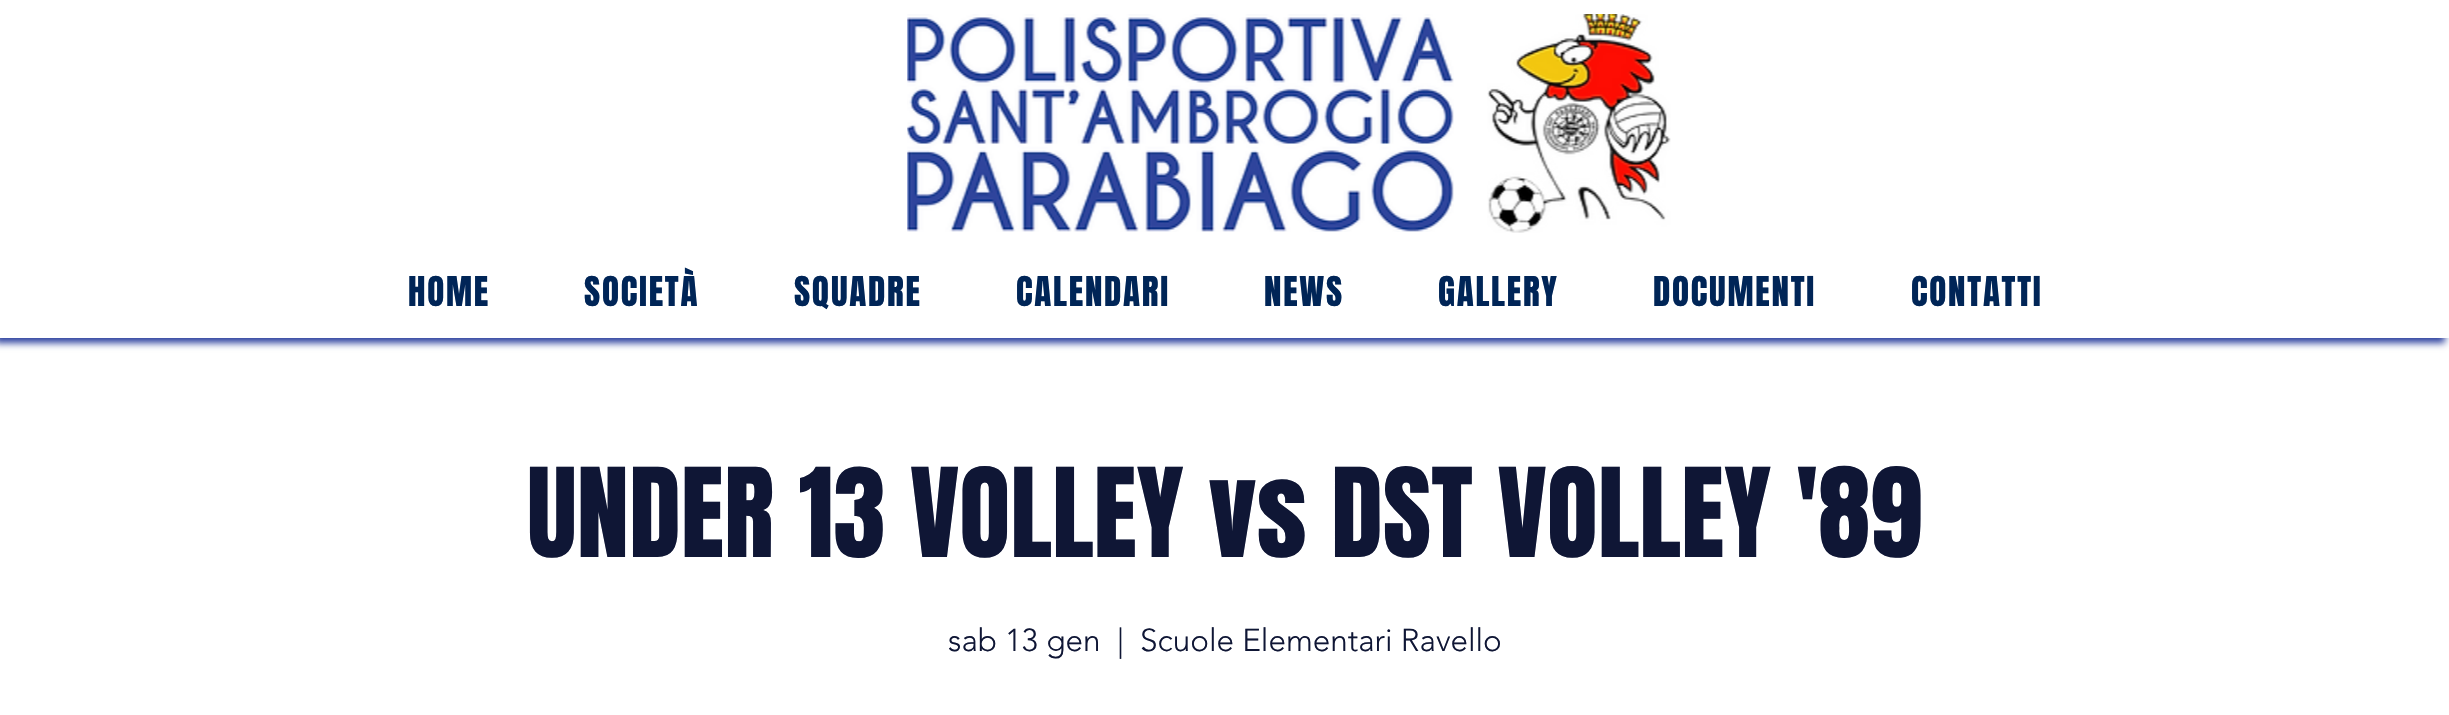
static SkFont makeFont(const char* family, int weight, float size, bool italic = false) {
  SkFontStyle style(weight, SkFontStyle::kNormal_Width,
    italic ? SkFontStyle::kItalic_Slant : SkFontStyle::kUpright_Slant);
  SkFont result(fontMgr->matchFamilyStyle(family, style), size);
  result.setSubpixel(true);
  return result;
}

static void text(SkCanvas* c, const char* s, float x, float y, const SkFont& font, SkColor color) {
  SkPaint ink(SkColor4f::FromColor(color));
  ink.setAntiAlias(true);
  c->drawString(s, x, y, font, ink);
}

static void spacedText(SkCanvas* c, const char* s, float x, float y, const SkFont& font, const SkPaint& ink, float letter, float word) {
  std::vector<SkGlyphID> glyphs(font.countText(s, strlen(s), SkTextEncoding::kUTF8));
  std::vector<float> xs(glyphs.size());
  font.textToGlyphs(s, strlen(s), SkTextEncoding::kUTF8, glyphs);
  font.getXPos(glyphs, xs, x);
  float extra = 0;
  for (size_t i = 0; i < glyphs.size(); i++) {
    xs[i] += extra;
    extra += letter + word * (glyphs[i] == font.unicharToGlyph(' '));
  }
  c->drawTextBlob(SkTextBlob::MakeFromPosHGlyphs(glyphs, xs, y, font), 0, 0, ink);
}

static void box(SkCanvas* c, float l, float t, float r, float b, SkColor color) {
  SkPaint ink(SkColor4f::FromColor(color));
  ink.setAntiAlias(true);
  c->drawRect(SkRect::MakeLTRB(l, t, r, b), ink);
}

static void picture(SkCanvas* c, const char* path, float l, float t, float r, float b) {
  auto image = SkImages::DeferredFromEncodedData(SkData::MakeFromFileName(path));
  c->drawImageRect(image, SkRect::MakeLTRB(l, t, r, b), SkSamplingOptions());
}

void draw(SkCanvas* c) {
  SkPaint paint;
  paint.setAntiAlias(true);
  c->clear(0xffffffff);
  paint.setColor(0xff2d429f);
  paint.setMaskFilter(SkMaskFilter::MakeBlur(kNormal_SkBlurStyle, 3.5f));
  c->drawRect(SkRect::MakeLTRB(-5, 5, 2445, 343), paint);
  paint.setMaskFilter(nullptr);
  box(c, 0, 0, 2449, 338, 0xffffffff);
  picture(c, "img_01.png", 907, 14, 1454, 232);
  picture(c, "img_02.png", 1487, 14, 1671, 233);
  SkFont face1 = makeFont("Anton", 400, 35);
  paint.setColor(0xff002557);
  spacedText(c, "HOME", 408, 306, face1, paint, 1.75f, 0);
  spacedText(c, "SOCIETÀ", 584, 306, face1, paint, 1.75f, 0);
  spacedText(c, "SQUADRE", 794, 306, face1, paint, 1.75f, 0);
  spacedText(c, "CALENDARI", 1016, 306, face1, paint, 1.75f, 0);
  spacedText(c, "NEWS", 1264, 306, face1, paint, 1.75f, 0);
  spacedText(c, "GALLERY", 1438, 306, face1, paint, 1.75f, 0);
  spacedText(c, "DOCUMENTI", 1653, 306, face1, paint, 1.75f, 0);
  spacedText(c, "CONTATTI", 1911, 306, face1, paint, 1.75f, 0);
  SkFont face2 = makeFont("Anton", 400, 105);
  text(c, "UNDER 13 VOLLEY vs DST VOLLEY '89", 527, 557, face2, 0xff0f1635);
  SkFont face3 = makeFont("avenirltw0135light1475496", 300, 31.5f);
  text(c, "sab 13 gen", 948, 651, face3, 0xff0f1635);
  text(c, "|", 1117, 651, face3, 0xff0f1635);
  text(c, "Scuole Elementari Ravello", 1140, 651, face3, 0xff0f1635);
}
